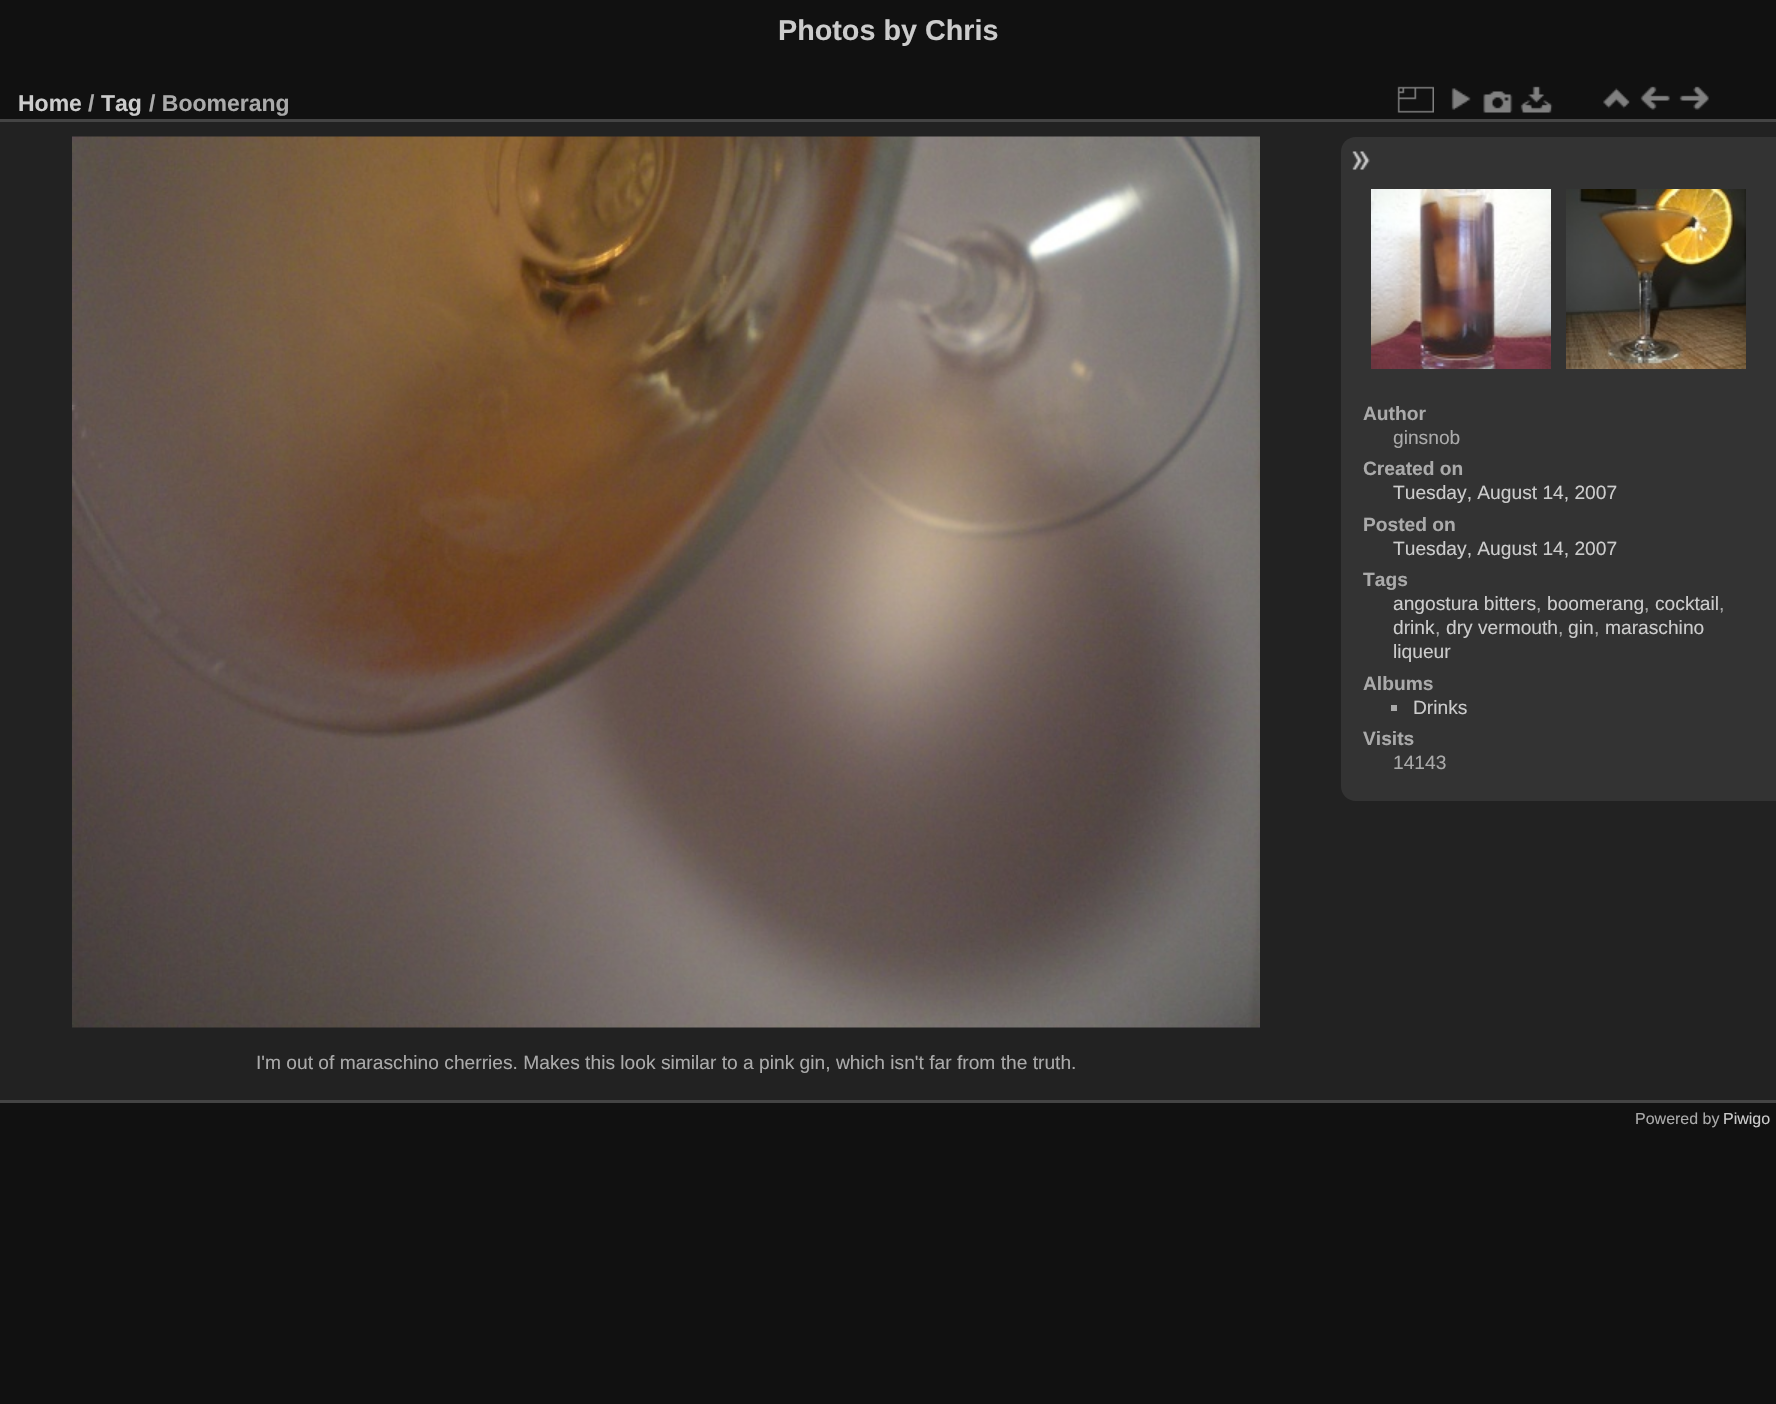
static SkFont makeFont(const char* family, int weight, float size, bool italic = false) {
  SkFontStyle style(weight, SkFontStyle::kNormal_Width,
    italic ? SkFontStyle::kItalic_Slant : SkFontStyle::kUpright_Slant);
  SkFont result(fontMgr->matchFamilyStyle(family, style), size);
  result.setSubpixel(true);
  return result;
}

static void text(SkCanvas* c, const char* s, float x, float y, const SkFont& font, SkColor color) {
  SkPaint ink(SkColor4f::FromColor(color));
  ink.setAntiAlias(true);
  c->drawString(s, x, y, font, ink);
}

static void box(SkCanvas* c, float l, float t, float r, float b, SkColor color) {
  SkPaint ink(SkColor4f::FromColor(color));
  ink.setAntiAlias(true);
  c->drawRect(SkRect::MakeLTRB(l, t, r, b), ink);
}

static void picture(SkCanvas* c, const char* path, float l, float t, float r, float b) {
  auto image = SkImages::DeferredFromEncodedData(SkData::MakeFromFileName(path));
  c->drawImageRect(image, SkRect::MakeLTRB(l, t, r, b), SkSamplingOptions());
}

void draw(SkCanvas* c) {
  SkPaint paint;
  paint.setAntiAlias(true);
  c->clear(0xff111111);
  SkFont face1 = makeFont("Liberation Sans", 700, 28.75f);
  text(c, "Photos by Chris", 778, 40, face1, 0xffcccccc);
  box(c, 0, 122, 1776, 1100, 0xff222222);
  box(c, 0, 1100, 1776, 1103, 0xff444444);
  box(c, 0, 119, 1776, 122, 0xff444444);
  SkFont face2 = makeFont("Liberation Sans", 700, 23);
  text(c, "Home", 18, 111, face2, 0xffcccccc);
  text(c, "/", 88, 111, face2, 0xffaaaaaa);
  text(c, "Tag", 101, 111, face2, 0xffcccccc);
  text(c, "/ Boomerang", 149, 111, face2, 0xffaaaaaa);
  picture(c, "img_01.png", 1397, 86, 1434, 113);
  picture(c, "img_02.png", 1451, 88, 1471, 110);
  picture(c, "img_03.png", 1483, 91, 1513, 113);
  picture(c, "img_04.png", 1520, 86, 1553, 113);
  picture(c, "img_05.png", 1603, 88, 1630, 109);
  picture(c, "img_06.png", 1640, 86, 1670, 110);
  picture(c, "img_07.png", 1679, 86, 1709, 110);
  paint.setColor(0xff333333);
  c->drawPath(SkPathBuilder().moveTo(1356, 137).lineTo(1776, 137).lineTo(1776, 801).lineTo(1356, 801).cubicTo(1347.5f, 801, 1341, 794.5f, 1341, 786).lineTo(1341, 152).cubicTo(1341, 143.5f, 1347.5f, 137, 1356, 137).close().detach(), paint);
  picture(c, "img_08.png", 1352, 151, 1370, 170);
  picture(c, "img_09.png", 1371, 189, 1551, 369);
  picture(c, "img_10.png", 1566, 189, 1746, 369);
  SkFont face3 = makeFont("Liberation Sans", 700, 19.2f);
  text(c, "Author", 1363, 420, face3, 0xffaaaaaa);
  SkFont face4 = makeFont("Liberation Sans", 400, 19.2f);
  text(c, "ginsnob", 1393, 444, face4, 0xffaaaaaa);
  text(c, "Created on", 1363, 475, face3, 0xffaaaaaa);
  text(c, "Tuesday, August 14, 2007", 1393, 499, face4, 0xffcccccc);
  text(c, "Posted on", 1363, 531, face3, 0xffaaaaaa);
  text(c, "Tuesday, August 14, 2007", 1393, 555, face4, 0xffcccccc);
  text(c, "Tags", 1363, 586, face3, 0xffaaaaaa);
  text(c, "angostura bitters", 1393, 610, face4, 0xffcccccc);
  text(c, ",", 1536, 610, face4, 0xffaaaaaa);
  text(c, "boomerang", 1547, 610, face4, 0xffcccccc);
  text(c, ",", 1644, 610, face4, 0xffaaaaaa);
  text(c, "cocktail", 1655, 610, face4, 0xffcccccc);
  text(c, ",", 1719, 610, face4, 0xffaaaaaa);
  text(c, "drink", 1393, 634, face4, 0xffcccccc);
  text(c, ",", 1435, 634, face4, 0xffaaaaaa);
  text(c, "dry vermouth", 1446, 634, face4, 0xffcccccc);
  text(c, ",", 1558, 634, face4, 0xffaaaaaa);
  text(c, "gin", 1568, 634, face4, 0xffcccccc);
  text(c, ",", 1594, 634, face4, 0xffaaaaaa);
  text(c, "maraschino", 1605, 634, face4, 0xffcccccc);
  text(c, "liqueur", 1393, 658, face4, 0xffcccccc);
  text(c, "Albums", 1363, 690, face3, 0xffaaaaaa);
  box(c, 1391, 705, 1397, 711, 0xffaaaaaa);
  text(c, "Drinks", 1413, 714, face4, 0xffcccccc);
  text(c, "Visits", 1363, 745, face3, 0xffaaaaaa);
  text(c, "14143", 1393, 769, face4, 0xffaaaaaa);
  picture(c, "img_11.png", 72, 136, 1260, 1028);
  text(c, "I'm out of maraschino cherries. Makes this look similar to a pink gin, which isn't far from the truth.", 256, 1069, face4, 0xffaaaaaa);
  SkFont face5 = makeFont("Liberation Sans", 400, 16);
  text(c, "Powered by", 1635, 1124, face5, 0xffaaaaaa);
  text(c, "Piwigo", 1723, 1124, face5, 0xffcccccc);
}
